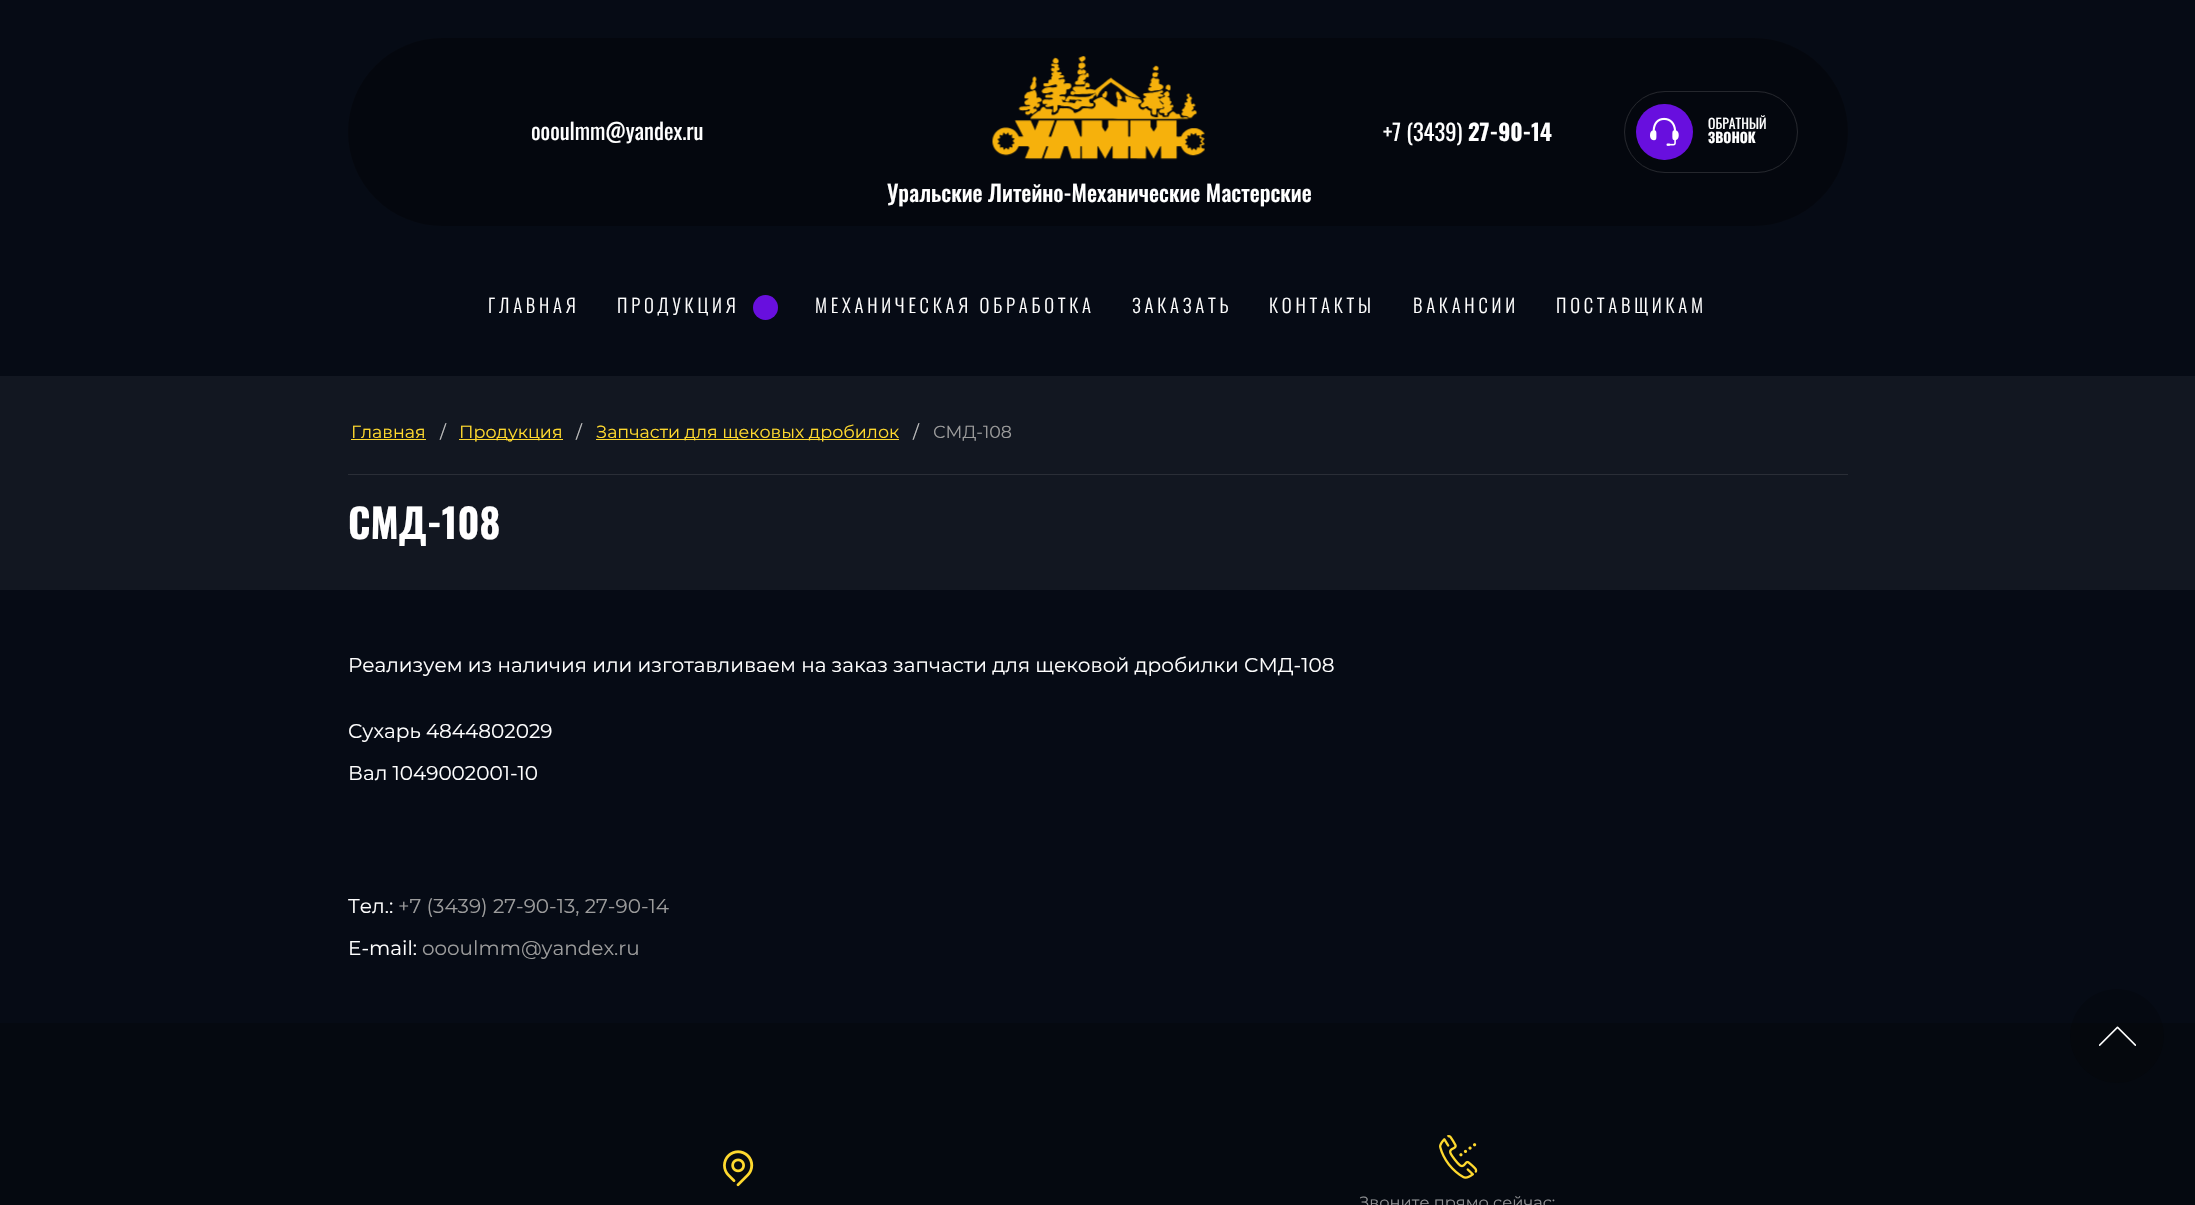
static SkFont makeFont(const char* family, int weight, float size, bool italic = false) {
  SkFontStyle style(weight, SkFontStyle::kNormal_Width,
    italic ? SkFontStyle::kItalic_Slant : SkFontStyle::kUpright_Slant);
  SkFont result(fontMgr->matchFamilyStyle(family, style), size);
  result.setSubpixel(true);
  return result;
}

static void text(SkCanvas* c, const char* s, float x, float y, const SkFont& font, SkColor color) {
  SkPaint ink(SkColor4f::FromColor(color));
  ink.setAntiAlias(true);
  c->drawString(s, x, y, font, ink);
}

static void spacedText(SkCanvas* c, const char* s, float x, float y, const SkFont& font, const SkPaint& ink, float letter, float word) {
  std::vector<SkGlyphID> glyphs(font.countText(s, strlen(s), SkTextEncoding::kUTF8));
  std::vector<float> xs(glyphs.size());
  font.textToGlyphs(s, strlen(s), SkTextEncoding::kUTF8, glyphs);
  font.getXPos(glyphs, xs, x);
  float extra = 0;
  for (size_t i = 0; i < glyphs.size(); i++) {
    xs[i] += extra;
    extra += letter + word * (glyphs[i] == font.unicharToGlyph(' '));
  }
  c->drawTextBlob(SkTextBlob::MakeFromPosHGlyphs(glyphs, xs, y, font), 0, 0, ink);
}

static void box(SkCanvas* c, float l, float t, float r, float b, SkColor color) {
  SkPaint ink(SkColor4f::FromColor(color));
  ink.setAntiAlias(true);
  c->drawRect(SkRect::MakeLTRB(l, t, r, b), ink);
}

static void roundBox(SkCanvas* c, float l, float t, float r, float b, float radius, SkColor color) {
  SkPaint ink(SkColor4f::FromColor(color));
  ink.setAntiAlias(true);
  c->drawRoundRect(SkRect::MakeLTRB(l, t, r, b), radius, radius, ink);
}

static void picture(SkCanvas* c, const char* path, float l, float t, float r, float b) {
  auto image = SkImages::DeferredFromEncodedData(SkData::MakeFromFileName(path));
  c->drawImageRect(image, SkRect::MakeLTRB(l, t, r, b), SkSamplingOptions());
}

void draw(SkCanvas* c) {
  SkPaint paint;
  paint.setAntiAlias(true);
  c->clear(0xff060b15);
  roundBox(c, 348, 38, 1848, 226, 94, 0xff04070e);
  SkFont face1 = makeFont("Oswald", 400, 22.5f);
  text(c, "oooulmm@yandex.ru", 531, 140, face1, 0xffffffff);
  text(c, "+7 (3439)", 1383, 141, face1, 0xffffffff);
  SkFont face2 = makeFont("Oswald", 700, 22.5f);
  text(c, "27-90-14", 1468, 141, face2, 0xffffffff);
  paint.setStyle(SkPaint::kStroke_Style);
  paint.setStrokeWidth(1);
  paint.setColor(0xff25272d);
  c->drawRoundRect(SkRect::MakeLTRB(1624.5f, 91.5f, 1797.5f, 172.5f), 40.5f, 40.5f, paint);
  roundBox(c, 1636, 104, 1693, 160, 28, 0xff680fde);
  picture(c, "img_01.png", 1650, 117, 1679, 146);
  SkFont face3 = makeFont("Oswald", 400, 13.75f);
  text(c, "ОБРАТНЫЙ", 1708, 129, face3, 0xffffffff);
  SkFont face4 = makeFont("Oswald", 700, 13.75f);
  text(c, "ЗВОНОК", 1708, 143, face4, 0xffffffff);
  picture(c, "img_02.png", 992, 56, 1205, 160);
  SkFont face5 = makeFont("Oswald", 500, 22.5f);
  text(c, "Уральские Литейно-Механические Мастерские", 887, 202, face5, 0xffffffff);
  SkFont face6 = makeFont("Oswald", 300, 18.75f);
  paint.setStyle(SkPaint::kFill_Style);
  paint.setColor(0xffffffff);
  spacedText(c, "ГЛАВНАЯ", 488, 313, face6, paint, 3.75f, 0);
  spacedText(c, "ПРОДУКЦИЯ", 617, 313, face6, paint, 3.75f, 0);
  paint.setColor(0xff680fde);
  c->drawCircle(765.5f, 307.5f, 12.5f, paint);
  paint.setColor(0xffffffff);
  spacedText(c, "МЕХАНИЧЕСКАЯ ОБРАБОТКА", 815, 313, face6, paint, 3.75f, 0);
  spacedText(c, "ЗАКАЗАТЬ", 1132, 313, face6, paint, 3.75f, 0);
  spacedText(c, "КОНТАКТЫ", 1269, 313, face6, paint, 3.75f, 0);
  spacedText(c, "ВАКАНСИИ", 1413, 313, face6, paint, 3.75f, 0);
  spacedText(c, "ПОСТАВЩИКАМ", 1556, 313, face6, paint, 3.75f, 0);
  box(c, 0, 376, 2195, 590, 0xff121721);
  box(c, 348, 474, 1848, 475, 0xff2a2e37);
  SkFont face7 = makeFont("Montserrat", 400, 17.5f);
  text(c, "Главная", 351, 438, face7, 0xffffd92e);
  box(c, 351, 439, 426, 440, 0xffffd92e);
  text(c, "/", 440, 438, face7, 0xffc0c0c0);
  box(c, 459, 439, 563, 440, 0xffffd92e);
  text(c, "Продукция", 459, 438, face7, 0xffffd92e);
  text(c, "/", 576, 438, face7, 0xffc0c0c0);
  box(c, 596, 439, 899, 440, 0xffffd92e);
  text(c, "Запчасти для щековых дробилок", 596, 438, face7, 0xffffd92e);
  text(c, "/", 913, 438, face7, 0xffc0c0c0);
  text(c, "СМД-108", 933, 438, face7, 0xff9c9c9c);
  SkFont face8 = makeFont("Oswald", 700, 40);
  text(c, "СМД-108", 348, 539, face8, 0xffffffff);
  SkFont face9 = makeFont("Montserrat", 400, 20);
  text(c, "Реализуем из наличия или изготавливаем на заказ запчасти для щековой дробилки СМД-108", 348, 672, face9, 0xffffffff);
  text(c, "Сухарь 4844802029", 348, 738, face9, 0xffffffff);
  text(c, "Вал 1049002001-10", 348, 780, face9, 0xffffffff);
  text(c, "Тел.:", 348, 913, face9, 0xffffffff);
  text(c, "+7 (3439) 27-90-13, 27-90-14", 398, 913, face9, 0xff9c9c9c);
  text(c, "E-mail:", 348, 955, face9, 0xffffffff);
  text(c, "oooulmm@yandex.ru", 422, 955, face9, 0xff9c9c9c);
  box(c, 0, 1023, 2195, 1205, 0xff050910);
  paint.setColor(0x30000000);
  c->drawCircle(2117, 1036, 47, paint);
  picture(c, "img_03.png", 2099, 1026, 2136, 1046);
  picture(c, "img_04.png", 723, 1150, 754, 1187);
  picture(c, "img_05.png", 1439, 1135, 1478, 1179);
  SkFont face10 = makeFont("Montserrat", 400, 16.25f);
  text(c, "Звоните прямо сейчас:", 1359, 1208, face10, 0xff8f9093);
}
